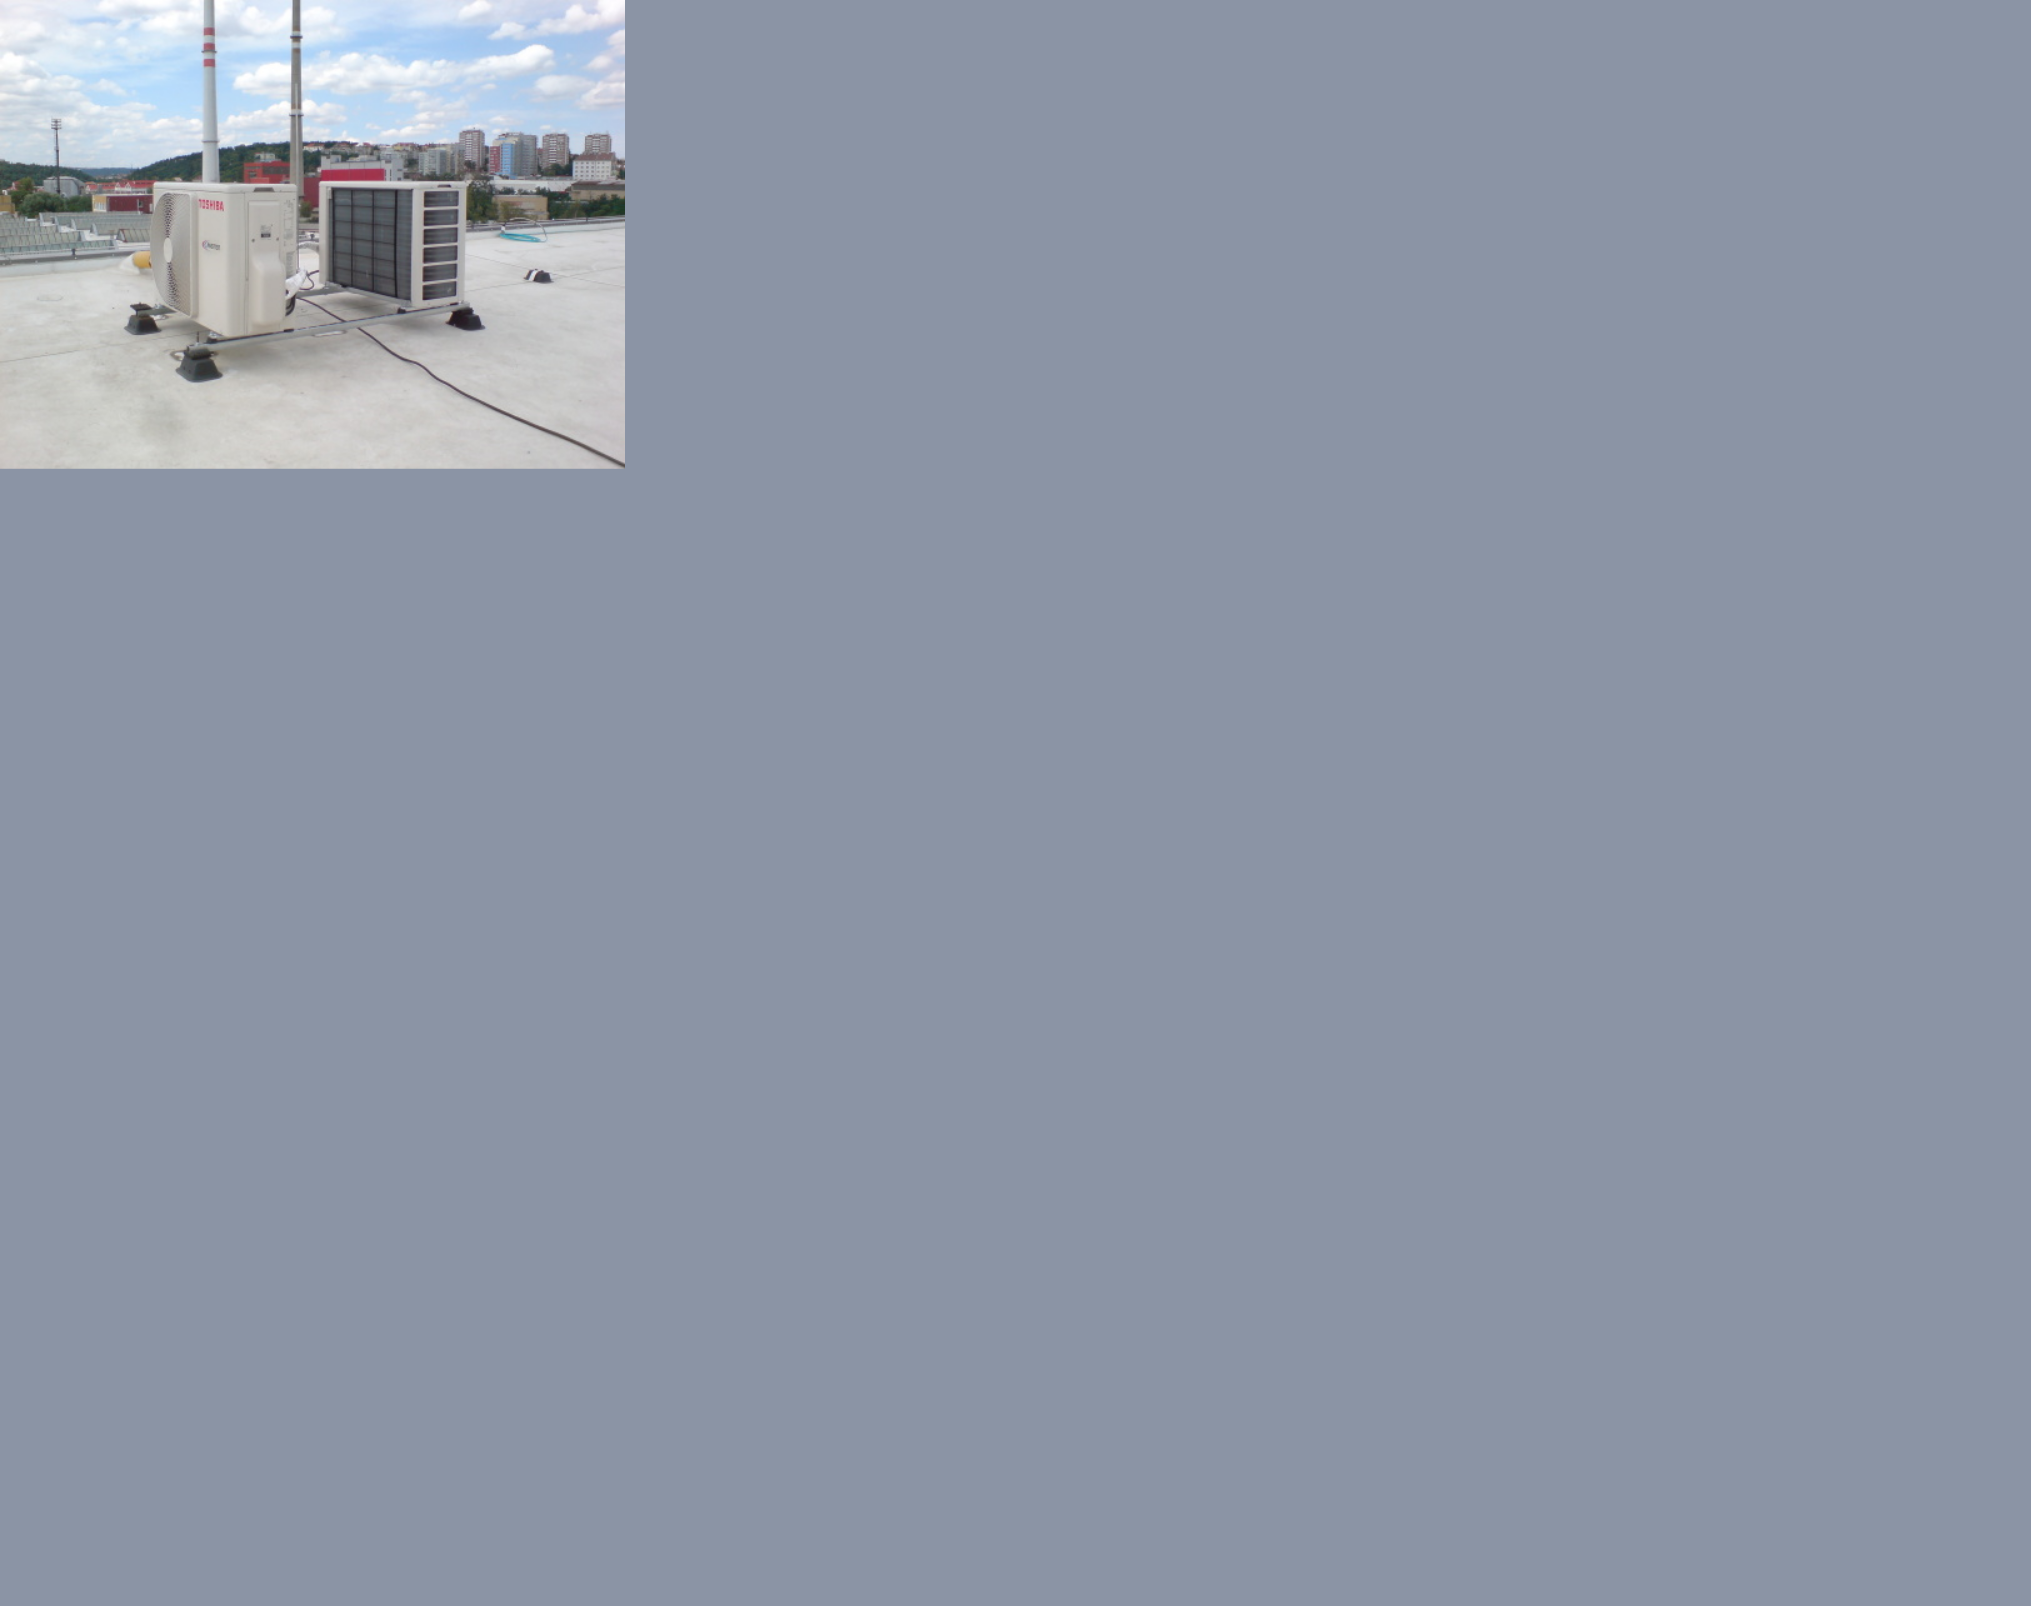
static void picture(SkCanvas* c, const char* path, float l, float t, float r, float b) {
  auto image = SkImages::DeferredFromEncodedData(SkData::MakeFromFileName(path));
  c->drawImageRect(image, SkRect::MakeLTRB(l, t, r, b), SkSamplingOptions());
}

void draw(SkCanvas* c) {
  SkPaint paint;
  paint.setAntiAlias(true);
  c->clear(0xff8b94a5);
  picture(c, "img_01.png", 0, 0, 625, 469);
}
